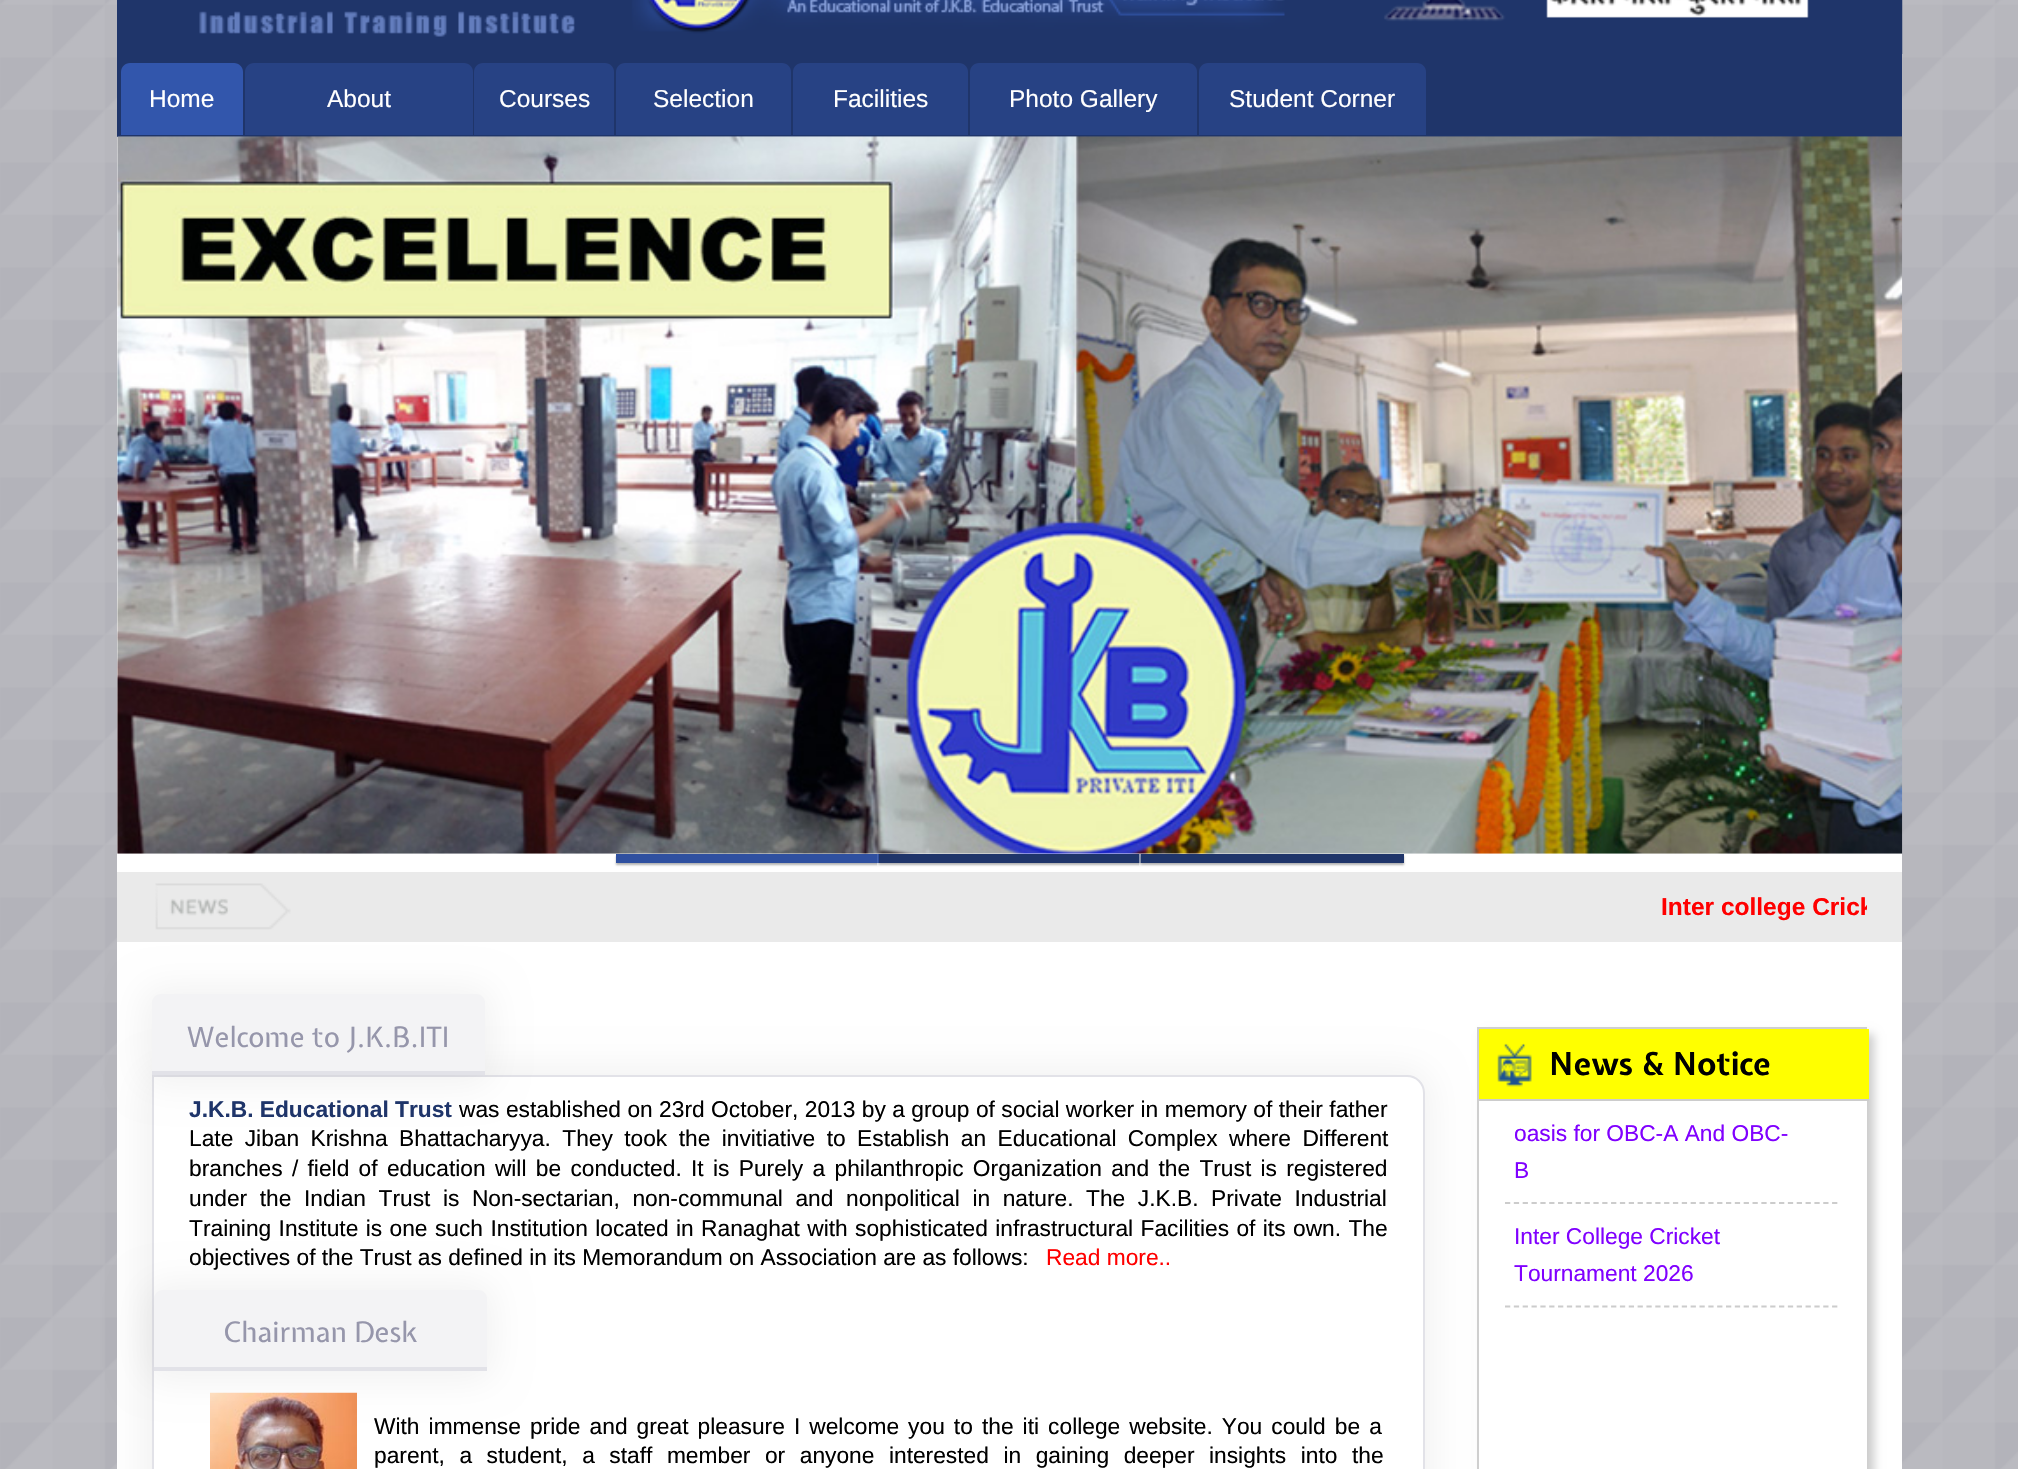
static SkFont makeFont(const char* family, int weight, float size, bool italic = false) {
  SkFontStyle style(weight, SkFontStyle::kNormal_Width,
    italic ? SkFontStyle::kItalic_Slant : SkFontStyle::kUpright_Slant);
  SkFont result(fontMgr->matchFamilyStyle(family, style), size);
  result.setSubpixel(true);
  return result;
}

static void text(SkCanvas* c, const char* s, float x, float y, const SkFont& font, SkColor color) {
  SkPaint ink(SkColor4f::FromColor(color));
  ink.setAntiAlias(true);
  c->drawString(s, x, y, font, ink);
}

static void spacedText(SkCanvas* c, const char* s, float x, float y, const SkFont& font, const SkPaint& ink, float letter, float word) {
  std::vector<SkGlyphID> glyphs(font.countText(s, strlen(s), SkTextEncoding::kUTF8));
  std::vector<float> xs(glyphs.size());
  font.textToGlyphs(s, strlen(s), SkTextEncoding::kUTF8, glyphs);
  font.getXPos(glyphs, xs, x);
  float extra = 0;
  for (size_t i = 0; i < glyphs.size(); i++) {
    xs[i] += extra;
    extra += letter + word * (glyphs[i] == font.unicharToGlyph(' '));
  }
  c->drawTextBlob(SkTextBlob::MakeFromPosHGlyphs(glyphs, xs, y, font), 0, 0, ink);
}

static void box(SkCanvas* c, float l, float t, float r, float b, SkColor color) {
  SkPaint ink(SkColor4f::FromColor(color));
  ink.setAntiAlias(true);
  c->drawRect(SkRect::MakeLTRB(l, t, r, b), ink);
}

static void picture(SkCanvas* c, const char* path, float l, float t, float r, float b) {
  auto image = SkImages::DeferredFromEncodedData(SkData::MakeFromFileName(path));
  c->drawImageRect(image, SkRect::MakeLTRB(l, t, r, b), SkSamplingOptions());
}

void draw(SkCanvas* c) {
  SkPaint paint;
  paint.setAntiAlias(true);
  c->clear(0xffffffff);
  picture(c, "img_01.png", 0, 0, 2018, 1469);
  box(c, 117, 644, 1902, 1469, 0xffffffff);
  box(c, 117, 0, 1902, 137, 0xff1f356a);
  picture(c, "img_02.png", 199, 0, 1903, 54);
  paint.setColor(0xff3256ac);
  c->drawPath(SkPathBuilder().moveTo(130, 63).lineTo(234, 63).cubicTo(239, 63, 243, 67, 243, 72).lineTo(243, 135).lineTo(121, 135).lineTo(121, 72).cubicTo(121, 67, 125, 63, 130, 63).close().detach(), paint);
  SkFont face1 = makeFont("Liberation Sans", 400, 24.5f);
  text(c, "Home", 149, 107, face1, 0xffffffff);
  paint.setColor(0xff274284);
  c->drawPath(SkPathBuilder().moveTo(254, 63).lineTo(464, 63).cubicTo(469, 63, 473, 67, 473, 72).lineTo(473, 135).lineTo(245, 135).lineTo(245, 72).cubicTo(245, 67, 249, 63, 254, 63).close().detach(), paint);
  text(c, "About", 327, 107, face1, 0xffffffff);
  c->drawPath(SkPathBuilder().moveTo(483, 63).lineTo(605, 63).cubicTo(610, 63, 614, 67, 614, 72).lineTo(614, 135).lineTo(474, 135).lineTo(474, 72).cubicTo(474, 67, 478, 63, 483, 63).close().detach(), paint);
  text(c, "Courses", 499, 107, face1, 0xffffffff);
  c->drawPath(SkPathBuilder().moveTo(625, 63).lineTo(782, 63).cubicTo(787, 63, 791, 67, 791, 72).lineTo(791, 135).lineTo(616, 135).lineTo(616, 72).cubicTo(616, 67, 620, 63, 625, 63).close().detach(), paint);
  text(c, "Selection", 653, 107, face1, 0xffffffff);
  c->drawPath(SkPathBuilder().moveTo(802, 63).lineTo(959, 63).cubicTo(964, 63, 968, 67, 968, 72).lineTo(968, 135).lineTo(793, 135).lineTo(793, 72).cubicTo(793, 67, 797, 63, 802, 63).close().detach(), paint);
  text(c, "Facilities", 833, 107, face1, 0xffffffff);
  c->drawPath(SkPathBuilder().moveTo(979, 63).lineTo(1188, 63).cubicTo(1193, 63, 1197, 67, 1197, 72).lineTo(1197, 135).lineTo(970, 135).lineTo(970, 72).cubicTo(970, 67, 974, 63, 979, 63).close().detach(), paint);
  text(c, "Photo Gallery", 1009, 107, face1, 0xffffffff);
  c->drawPath(SkPathBuilder().moveTo(1208, 63).lineTo(1417, 63).cubicTo(1422, 63, 1426, 67, 1426, 72).lineTo(1426, 135).lineTo(1199, 135).lineTo(1199, 72).cubicTo(1199, 67, 1203, 63, 1208, 63).close().detach(), paint);
  text(c, "Student Corner", 1229, 107, face1, 0xffffffff);
  box(c, 117, 137, 118, 644, 0xffffffff);
  paint.setColor(0x4d000000);
  paint.setMaskFilter(SkMaskFilter::MakeBlur(kNormal_SkBlurStyle, 1));
  c->drawRect(SkRect::MakeLTRB(616, 856, 879, 865), paint);
  paint.setMaskFilter(nullptr);
  box(c, 616, 854, 879, 863, 0xff1f356a);
  paint.setColor(0x80ffffff);
  c->drawPath(SkPathBuilder().moveTo(877, 854).lineTo(877, 866).lineTo(1143, 866).lineTo(1143, 854).lineTo(1141, 854).lineTo(1141, 863).lineTo(878, 863).lineTo(878, 854).close().detach(), paint);
  paint.setColor(0x4d000000);
  paint.setMaskFilter(SkMaskFilter::MakeBlur(kNormal_SkBlurStyle, 1));
  c->drawRect(SkRect::MakeLTRB(879, 856, 1141, 865), paint);
  paint.setMaskFilter(nullptr);
  box(c, 879, 854, 1141, 863, 0xff1f356a);
  paint.setColor(0x80ffffff);
  c->drawPath(SkPathBuilder().moveTo(1139, 854).lineTo(1139, 866).lineTo(1405, 866).lineTo(1405, 854).lineTo(1404, 854).lineTo(1404, 863).lineTo(1141, 863).lineTo(1141, 854).close().detach(), paint);
  paint.setColor(0x4d000000);
  paint.setMaskFilter(SkMaskFilter::MakeBlur(kNormal_SkBlurStyle, 1));
  c->drawRect(SkRect::MakeLTRB(1141, 856, 1404, 865), paint);
  paint.setMaskFilter(nullptr);
  picture(c, "img_03.png", 117, 136, 1903, 854);
  box(c, 1141, 854, 1404, 863, 0xff1f356a);
  box(c, 616, 854, 879, 863, 0xcc3256ac);
  box(c, 117, 872, 1902, 942, 0xffeaeaea);
  picture(c, "img_04.png", 155, 883, 291, 930);
  c->save();
  c->clipRect(SkRect::MakeLTRB(362, 872, 1867, 942));
  SkFont face2 = makeFont("Liberation Sans", 700, 24.5f);
  text(c, "Inter college Crick", 1661, 915, face2, 0xffff0000);
  c->restore();
  paint.setColor(0x0d000000);
  paint.setMaskFilter(SkMaskFilter::MakeBlur(kNormal_SkBlurStyle, 17.5f));
  c->drawRoundRect(SkRect::MakeLTRB(142, 1068, 1432, 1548), 26, 26, paint);
  paint.setMaskFilter(nullptr);
  paint.setColor(0xffffffff);
  c->drawPath(SkPathBuilder().moveTo(153, 1076).lineTo(1407, 1076).cubicTo(1416.5f, 1076, 1424, 1083.5f, 1424, 1093).lineTo(1424, 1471).cubicTo(1424, 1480.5f, 1416.5f, 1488, 1407, 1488).lineTo(170, 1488).cubicTo(160.5f, 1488, 153, 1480.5f, 153, 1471).close().detach(), paint);
  paint.setStyle(SkPaint::kStroke_Style);
  paint.setStrokeWidth(2);
  paint.setColor(0xffe2e2e8);
  c->drawPath(SkPathBuilder().moveTo(153, 1076).lineTo(1407, 1076).cubicTo(1416.5f, 1076, 1424, 1083.5f, 1424, 1093).lineTo(1424, 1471).cubicTo(1424, 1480.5f, 1416.5f, 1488, 1407, 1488).lineTo(170, 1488).cubicTo(160.5f, 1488, 153, 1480.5f, 153, 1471).close().detach(), paint);
  paint.setStyle(SkPaint::kFill_Style);
  paint.setColor(0x0d000000);
  paint.setMaskFilter(SkMaskFilter::MakeBlur(kNormal_SkBlurStyle, 17.5f));
  c->drawRoundRect(SkRect::MakeLTRB(142, 987, 492, 1085), 18, 18, paint);
  paint.setMaskFilter(nullptr);
  paint.setColor(0xfff3f3f5);
  c->drawPath(SkPathBuilder().moveTo(161, 994).lineTo(476, 994).cubicTo(481, 994, 485, 998, 485, 1003).lineTo(485, 1075).lineTo(152, 1075).lineTo(152, 1003).cubicTo(152, 998, 156, 994, 161, 994).close().detach(), paint);
  box(c, 152, 1071, 485, 1075, 0xffe2e2e8);
  SkFont face3 = makeFont("Expletus Sans", 400, 28);
  text(c, "Welcome to J.K.B.ITI", 187, 1047, face3, 0xff9696ab);
  SkFont face4 = makeFont("Liberation Sans", 700, 22.75f);
  text(c, "J.K.B. Educational Trust", 189, 1117, face4, 0xff1f356a);
  SkFont face5 = makeFont("Liberation Sans", 400, 22.75f);
  paint.setColor(0xff000000);
  spacedText(c, "was established on 23rd October, 2013 by a group of social worker in memory of their father", 459, 1117, face5, paint, 0, 0.1f);
  spacedText(c, "Late Jiban Krishna Bhattacharyya. They took the invitiative to Establish an Educational Complex where Different", 189, 1146, face5, paint, 0, 5.1f);
  spacedText(c, "branches / field of education will be conducted. It is Purely a philanthropic Organization and the Trust is registered", 189, 1176, face5, paint, 0, 3);
  spacedText(c, "under the Indian Trust is Non-sectarian, non-communal and nonpolitical in nature. The J.K.B. Private Industrial", 189, 1206, face5, paint, 0, 6.25f);
  paint.setColor(0x0d000000);
  paint.setMaskFilter(SkMaskFilter::MakeBlur(kNormal_SkBlurStyle, 17.5f));
  c->drawRoundRect(SkRect::MakeLTRB(144, 1283, 494, 1381), 18, 18, paint);
  paint.setMaskFilter(nullptr);
  paint.setColor(0xff000000);
  spacedText(c, "Training Institute is one such Institution located in Ranaghat with sophisticated infrastructural Facilities of its own. The", 189, 1236, face5, paint, 0, 1.1f);
  text(c, "objectives of the Trust as defined in its Memorandum on Association are as follows:", 189, 1265, face5, 0xff000000);
  text(c, "Read more..", 1046, 1265, face5, 0xffff0000);
  paint.setColor(0xfff3f3f5);
  c->drawPath(SkPathBuilder().moveTo(163, 1290).lineTo(478, 1290).cubicTo(483, 1290, 487, 1294, 487, 1299).lineTo(487, 1370).lineTo(154, 1370).lineTo(154, 1299).cubicTo(154, 1294, 158, 1290, 163, 1290).close().detach(), paint);
  box(c, 154, 1367, 487, 1371, 0xffe2e2e8);
  text(c, "Chairman Desk", 223, 1342, face3, 0xff9696ab);
  picture(c, "img_05.png", 210, 1392, 357, 1469);
  paint.setColor(0xff000000);
  spacedText(c, "With immense pride and great pleasure I welcome you to the iti college website. You could be a", 374, 1434, face5, paint, 0, 2.75f);
  spacedText(c, "parent, a student, a staff member or anyone interested in gaining deeper insights into the", 374, 1463, face5, paint, 0, 8.25f);
  c->save();
  c->clipPath(SkPathBuilder(SkPathFillType::kEvenOdd).moveTo(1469, 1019).lineTo(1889, 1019).lineTo(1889, 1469).lineTo(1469, 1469).close().moveTo(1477, 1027).lineTo(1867, 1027).lineTo(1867, 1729).lineTo(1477, 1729).close().detach(), true);
  paint.setColor(0xffcccccc);
  paint.setMaskFilter(SkMaskFilter::MakeBlur(kNormal_SkBlurStyle, 4.5f));
  c->drawRect(SkRect::MakeLTRB(1484, 1034, 1874, 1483), paint);
  paint.setMaskFilter(nullptr);
  c->restore();
  box(c, 1477, 1027, 1867, 1029, 0xffcfcfcf);
  box(c, 1477, 1027, 1479, 1469, 0xffcfcfcf);
  box(c, 1479, 1029, 1869, 1099, 0xffffff00);
  picture(c, "img_06.png", 1497, 1043, 1532, 1087);
  box(c, 1479, 1099, 1869, 1101, 0xffcccccc);
  SkFont face6 = makeFont("Expletus Sans", 700, 31.5f);
  text(c, "News & Notice", 1549, 1075, face6, 0xff000000);
  paint.setStyle(SkPaint::kStroke_Style);
  paint.setStrokeWidth(1.8f);
  paint.setPathEffect(SkDashPathEffect::Make({{5.25f, 3.59f}}, 0));
  c->drawPath(SkPathBuilder().moveTo(1505, 1203).lineTo(1837.5f, 1203).detach(), paint);
  paint.setPathEffect(nullptr);
  text(c, "oasis for OBC-A And OBC-", 1514, 1141, face5, 0xff8000ff);
  text(c, "B", 1514, 1178, face5, 0xff8000ff);
  paint.setPathEffect(SkDashPathEffect::Make({{5.25f, 3.59f}}, 0));
  c->drawPath(SkPathBuilder().moveTo(1505, 1306.5f).lineTo(1837.5f, 1306.5f).detach(), paint);
  paint.setPathEffect(nullptr);
  text(c, "Inter College Cricket", 1514, 1244, face5, 0xff8000ff);
  text(c, "Tournament 2026", 1514, 1281, face5, 0xff8000ff);
}
